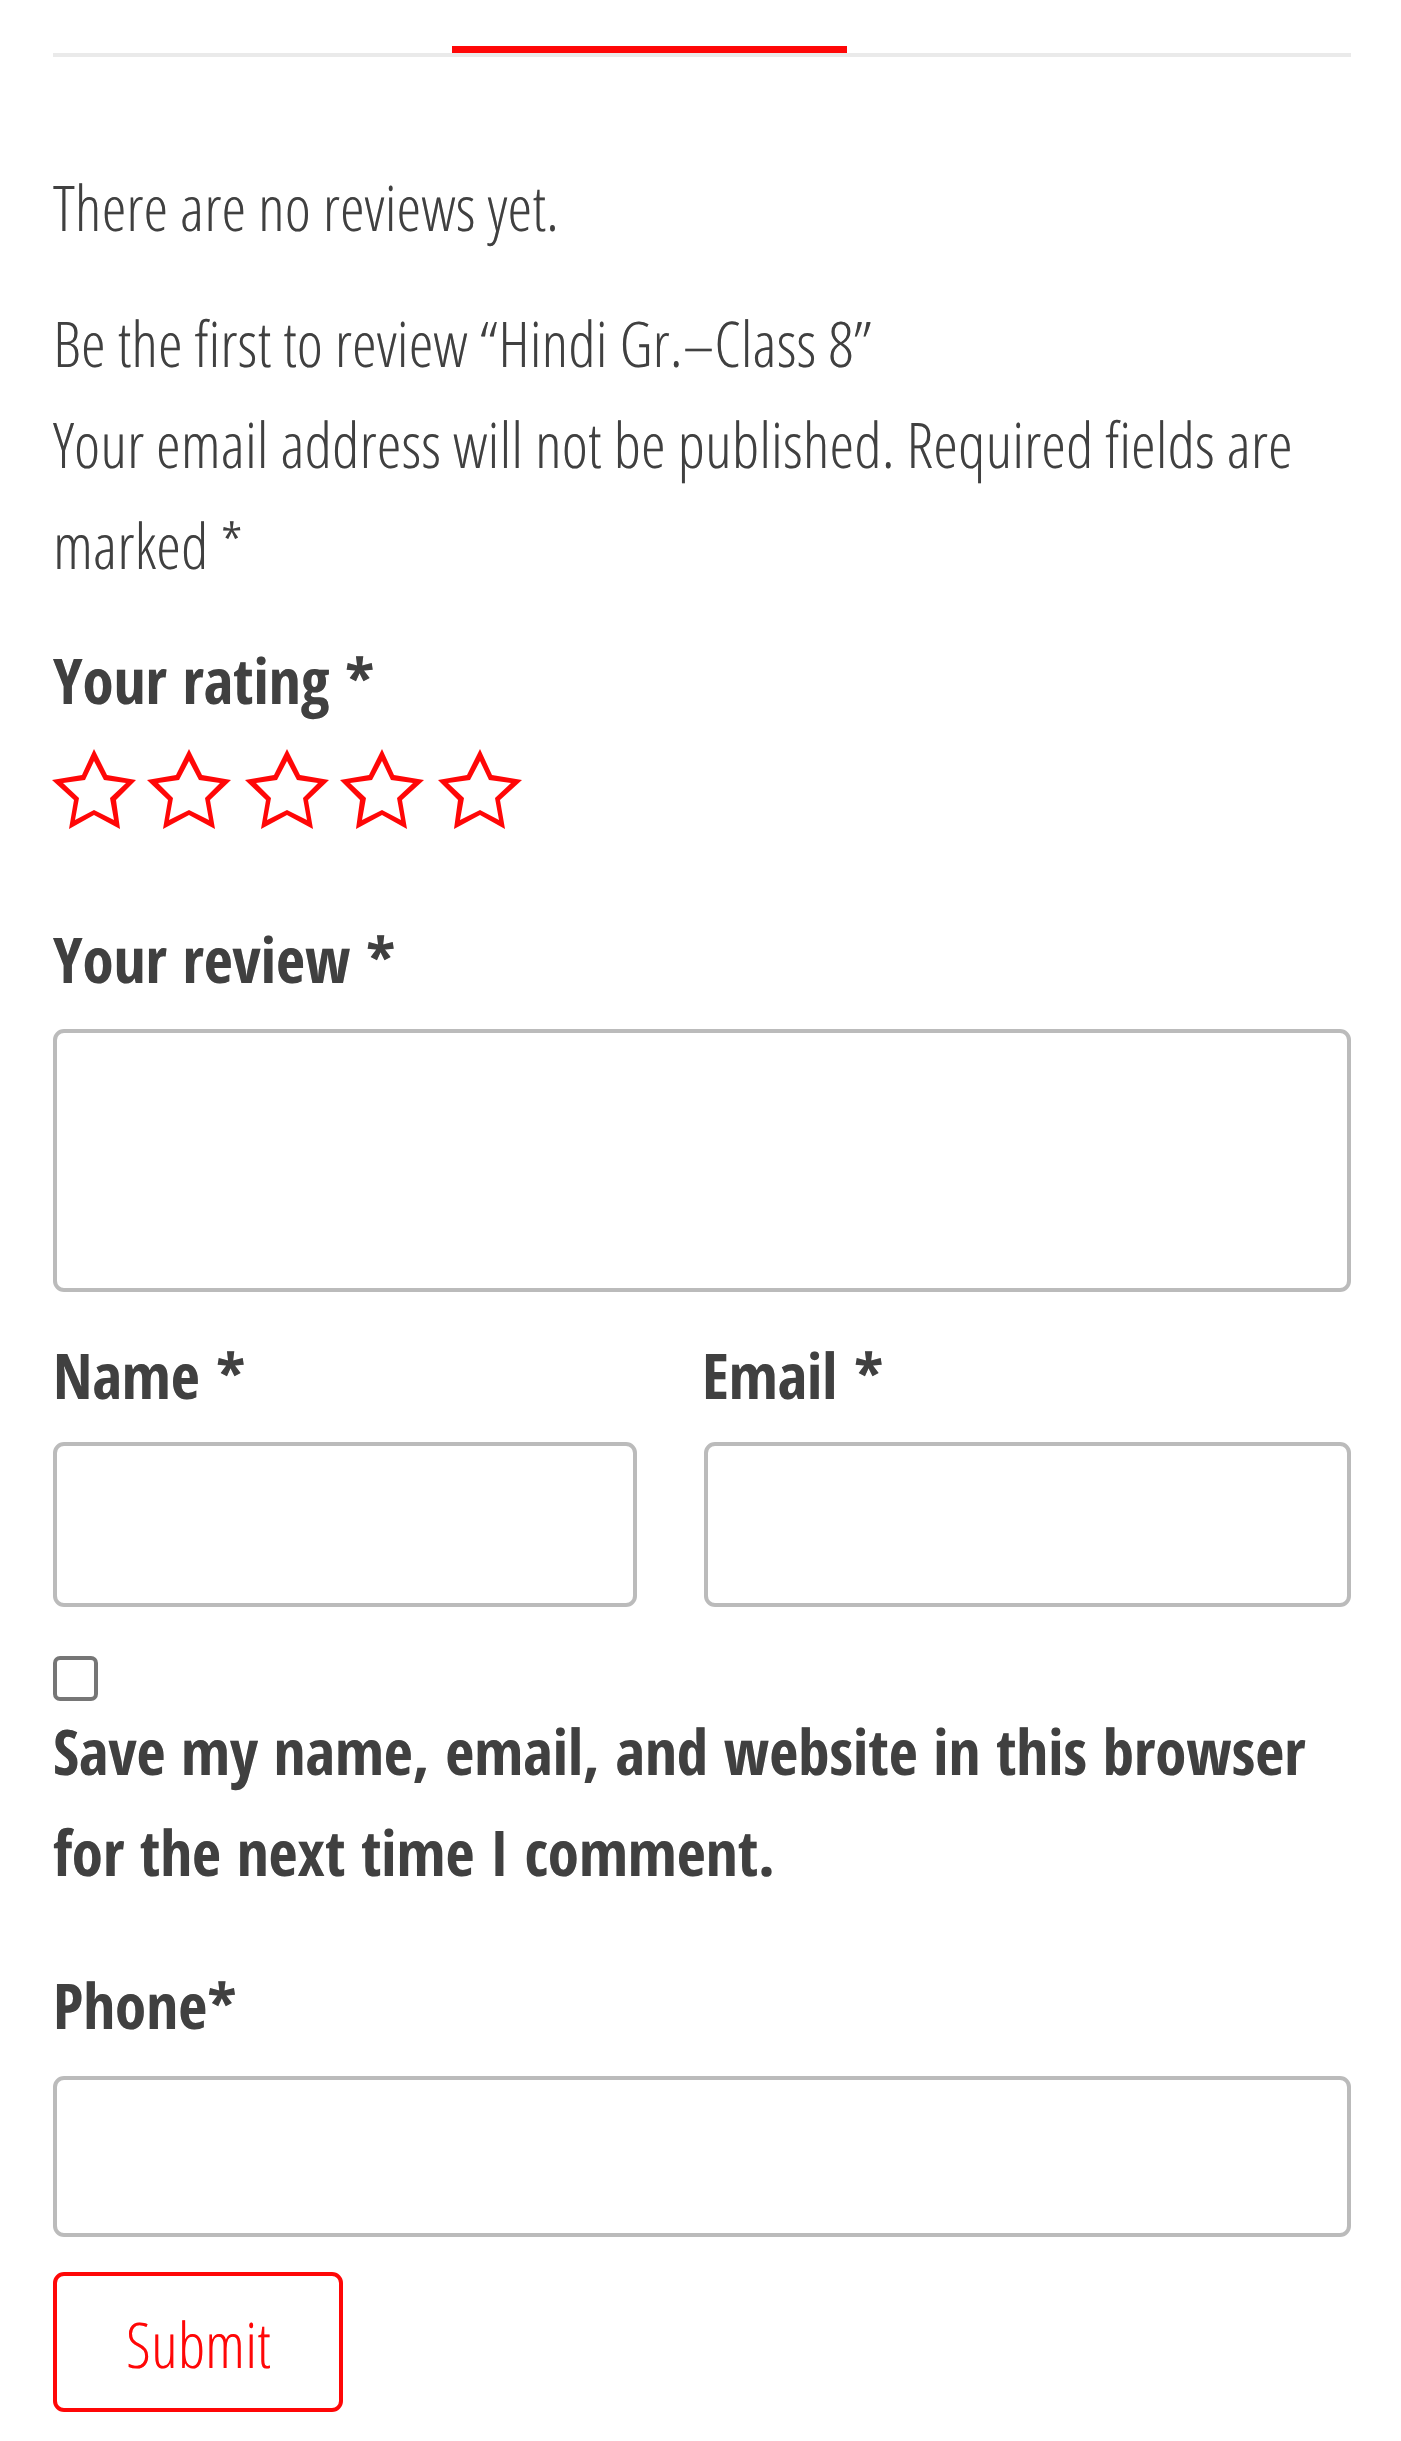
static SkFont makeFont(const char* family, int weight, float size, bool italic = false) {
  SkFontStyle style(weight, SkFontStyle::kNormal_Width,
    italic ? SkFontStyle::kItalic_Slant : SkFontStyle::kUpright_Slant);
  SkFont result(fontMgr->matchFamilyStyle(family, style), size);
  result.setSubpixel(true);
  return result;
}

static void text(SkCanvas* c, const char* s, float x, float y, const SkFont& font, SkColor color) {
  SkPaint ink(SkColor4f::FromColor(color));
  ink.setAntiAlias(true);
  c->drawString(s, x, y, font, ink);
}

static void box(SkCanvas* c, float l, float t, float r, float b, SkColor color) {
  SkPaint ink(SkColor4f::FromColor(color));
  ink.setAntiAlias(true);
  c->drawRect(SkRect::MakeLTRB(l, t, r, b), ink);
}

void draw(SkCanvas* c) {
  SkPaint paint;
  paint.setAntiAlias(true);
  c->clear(0xffffffff);
  box(c, 53, 53, 1351, 57, 0xffeaeaea);
  box(c, 452, 46, 847, 53, 0xffff0707);
  SkFont face1 = makeFont("Open Sans Condensed", 300, 63);
  text(c, "There are no reviews yet.", 53, 231, face1, 0xff404040);
  text(c, "Be the first to review “Hindi Gr.–Class 8”", 53, 367, face1, 0xff404040);
  text(c, "Your email address will not be published. Required fields are", 53, 468, face1, 0xff404040);
  text(c, "marked *", 53, 569, face1, 0xff404040);
  SkFont face2 = makeFont("Open Sans Condensed", 700, 63);
  text(c, "Your rating", 53, 704, face2, 0xff404040);
  text(c, "*", 345, 704, face2, 0xff404040);
  paint.setColor(0xffff0707);
  c->drawPath(SkPathBuilder().moveTo(94, 749).lineTo(82, 775).lineTo(52, 780).lineTo(74, 800).lineTo(69, 829).lineTo(94, 815).lineTo(120, 829).lineTo(116, 800).lineTo(136, 780).lineTo(107, 775).close().moveTo(94, 761).lineTo(104, 780).lineTo(126, 783).lineTo(110, 798).lineTo(114, 820).lineTo(94, 810).lineTo(75, 820).lineTo(79, 798).lineTo(63, 783).lineTo(85, 780).close().detach(), paint);
  c->drawPath(SkPathBuilder().moveTo(189, 749).lineTo(176, 775).lineTo(147, 780).lineTo(168, 800).lineTo(163, 829).lineTo(189, 815).lineTo(215, 829).lineTo(210, 800).lineTo(231, 780).lineTo(202, 775).close().moveTo(189, 761).lineTo(199, 780).lineTo(220, 783).lineTo(205, 798).lineTo(209, 820).lineTo(189, 810).lineTo(169, 820).lineTo(173, 798).lineTo(158, 783).lineTo(179, 780).close().detach(), paint);
  c->drawPath(SkPathBuilder().moveTo(287, 749).lineTo(274, 775).lineTo(245, 780).lineTo(266, 800).lineTo(261, 829).lineTo(287, 815).lineTo(313, 829).lineTo(308, 800).lineTo(329, 780).lineTo(300, 775).close().moveTo(287, 761).lineTo(297, 780).lineTo(318, 783).lineTo(303, 798).lineTo(307, 820).lineTo(287, 810).lineTo(267, 820).lineTo(271, 798).lineTo(256, 783).lineTo(277, 780).close().detach(), paint);
  c->drawPath(SkPathBuilder().moveTo(382, 749).lineTo(369, 775).lineTo(340, 780).lineTo(360, 800).lineTo(356, 829).lineTo(382, 815).lineTo(407, 829).lineTo(402, 800).lineTo(424, 780).lineTo(394, 775).close().moveTo(382, 761).lineTo(391, 780).lineTo(413, 783).lineTo(397, 798).lineTo(401, 820).lineTo(382, 810).lineTo(362, 820).lineTo(366, 798).lineTo(350, 783).lineTo(372, 780).close().detach(), paint);
  c->drawPath(SkPathBuilder().moveTo(480, 749).lineTo(467, 775).lineTo(438, 780).lineTo(458, 800).lineTo(454, 829).lineTo(480, 815).lineTo(505, 829).lineTo(500, 800).lineTo(522, 780).lineTo(492, 775).close().moveTo(480, 761).lineTo(489, 780).lineTo(511, 783).lineTo(495, 798).lineTo(499, 820).lineTo(480, 810).lineTo(460, 820).lineTo(464, 798).lineTo(448, 783).lineTo(470, 780).close().detach(), paint);
  text(c, "Your review", 53, 983, face2, 0xff404040);
  text(c, "*", 366, 983, face2, 0xff404040);
  paint.setStyle(SkPaint::kStroke_Style);
  paint.setStrokeWidth(4);
  paint.setColor(0xffbbbbbb);
  c->drawRoundRect(SkRect::MakeLTRB(55, 1031, 1349, 1290), 9, 9, paint);
  text(c, "Name", 53, 1399, face2, 0xff404040);
  text(c, "*", 216, 1399, face2, 0xff404040);
  c->drawRoundRect(SkRect::MakeLTRB(55, 1444, 635, 1605), 9, 9, paint);
  text(c, "Email", 702, 1399, face2, 0xff404040);
  text(c, "*", 854, 1399, face2, 0xff404040);
  c->drawRoundRect(SkRect::MakeLTRB(706, 1444, 1349, 1605), 9, 9, paint);
  paint.setColor(0xff767676);
  c->drawRoundRect(SkRect::MakeLTRB(55, 1658, 96, 1699), 5, 5, paint);
  text(c, "Save my name, email, and website in this browser", 53, 1775, face2, 0xff404040);
  text(c, "for the next time I comment.", 53, 1876, face2, 0xff404040);
  text(c, "Phone*", 53, 2029, face2, 0xff404040);
  paint.setColor(0xffbbbbbb);
  c->drawRoundRect(SkRect::MakeLTRB(55, 2078, 1349, 2235), 9, 9, paint);
  paint.setColor(0xffff0707);
  c->drawRoundRect(SkRect::MakeLTRB(55, 2274, 341, 2410), 9, 9, paint);
  text(c, "Submit", 126, 2368, face1, 0xffff0707);
}
